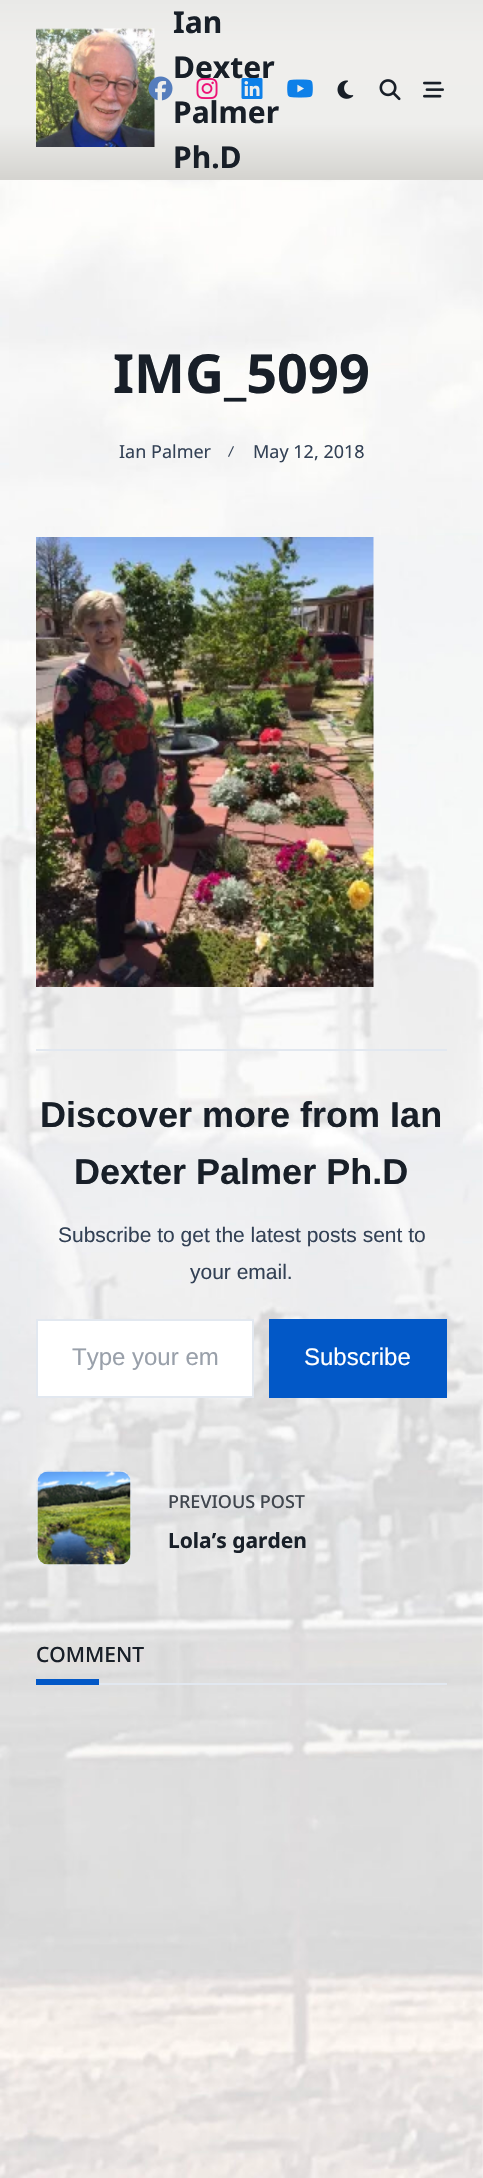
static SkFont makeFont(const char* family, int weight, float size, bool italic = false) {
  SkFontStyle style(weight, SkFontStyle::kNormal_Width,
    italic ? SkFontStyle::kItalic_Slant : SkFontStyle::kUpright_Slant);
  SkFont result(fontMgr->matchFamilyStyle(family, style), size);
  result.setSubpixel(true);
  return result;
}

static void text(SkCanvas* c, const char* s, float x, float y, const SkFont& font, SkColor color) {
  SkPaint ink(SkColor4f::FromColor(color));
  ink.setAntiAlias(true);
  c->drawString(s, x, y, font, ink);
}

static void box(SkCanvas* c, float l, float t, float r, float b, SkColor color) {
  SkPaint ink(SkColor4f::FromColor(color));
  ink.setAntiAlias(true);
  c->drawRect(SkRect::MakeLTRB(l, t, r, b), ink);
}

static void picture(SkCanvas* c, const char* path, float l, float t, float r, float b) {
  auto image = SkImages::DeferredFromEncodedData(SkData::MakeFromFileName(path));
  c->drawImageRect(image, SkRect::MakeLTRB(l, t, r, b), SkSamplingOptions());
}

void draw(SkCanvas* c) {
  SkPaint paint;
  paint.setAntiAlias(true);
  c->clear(0xffffffff);
  picture(c, "img_01.png", 0, 180, 483, 2178);
  {
    const SkColor colors[] = {0xffd5d4d0, 0xffd5d4d0, 0xffeeeeec, 0xffefeeec, 0xffe9e9e7};
    const float stops[] = {0, 0.01f, 0.31f, 0.75f, 1};
    const SkPoint ends[] = {{242, 180}, {242, 0}};
    paint.setShader(SkGradientShader::MakeLinear(ends, colors, stops, 5, SkTileMode::kClamp));
    paint.setAlpha(255);
  }
  c->drawRect(SkRect::MakeLTRB(0, 0, 483, 180), paint);
  picture(c, "img_02.png", 36, 28, 155, 147);
  SkFont face1 = makeFont("Noto Sans", 700, 30);
  text(c, "Ian", 173, 33, face1, 0xff181f28);
  text(c, "Dexter", 173, 78, face1, 0xff181f28);
  text(c, "Palmer", 173, 123, face1, 0xff181f28);
  text(c, "Ph.D", 173, 168, face1, 0xff181f28);
  picture(c, "img_03.png", 148, 76, 173, 101);
  picture(c, "img_04.png", 196, 78, 218, 99);
  picture(c, "img_05.png", 241, 78, 263, 99);
  picture(c, "img_06.png", 287, 79, 313, 98);
  picture(c, "img_07.png", 337, 80, 354, 99);
  picture(c, "img_08.png", 379, 79, 401, 101);
  picture(c, "img_09.png", 423, 81, 444, 98);
  SkFont face2 = makeFont("Noto Sans", 700, 54);
  text(c, "IMG_5099", 113, 393, face2, 0xff181f28);
  SkFont face3 = makeFont("Noto Sans", 400, 18);
  text(c, "Ian Palmer", 119, 458, face3, 0xff334155);
  paint.setShader(nullptr);
  paint.setColor(0xff334155);
  c->drawPath(SkPathBuilder().moveTo(228, 456.5f).lineTo(233, 446).lineTo(234, 446.5f).lineTo(229, 457).close().detach(), paint);
  text(c, "May 12, 2018", 253, 458, face3, 0xff334155);
  picture(c, "img_10.png", 36, 537, 374, 987);
  box(c, 36, 1049, 447, 1051, 0xffe2e8f0);
  SkFont face4 = makeFont("Liberation Sans", 700, 36);
  text(c, "Discover more from Ian", 40, 1127, face4, 0xff181f28);
  text(c, "Dexter Palmer Ph.D", 74, 1184, face4, 0xff181f28);
  SkFont face5 = makeFont("Liberation Sans", 400, 21);
  text(c, "Subscribe to get the latest posts sent to", 58, 1242, face5, 0xff334155);
  text(c, "your email.", 190, 1279, face5, 0xff334155);
  paint.setColor(0xffffffff);
  c->drawRect(SkRect::MakeLTRB(37, 1320, 253, 1397), paint);
  paint.setStyle(SkPaint::kStroke_Style);
  paint.setStrokeWidth(2);
  paint.setColor(0xffe2e8f0);
  c->drawRect(SkRect::MakeLTRB(37, 1320, 253, 1397), paint);
  SkFont face6 = makeFont("Liberation Sans", 400, 24);
  text(c, "Type your em", 72, 1365, face6, 0xff99a0aa);
  box(c, 269, 1319, 447, 1398, 0xff0258c7);
  text(c, "Subscribe", 304, 1365, face6, 0xffffffff);
  paint.setStrokeWidth(1.5f);
  paint.setPathEffect(SkDashPathEffect::Make({{4.5f, 3}}, 0));
  c->drawPath(SkPathBuilder().moveTo(48, 1471).lineTo(120, 1471).cubicTo(126, 1471, 131, 1476, 131, 1482).lineTo(131, 1554).cubicTo(131, 1560, 126, 1565, 120, 1565).lineTo(48, 1565).cubicTo(42, 1565, 37, 1560, 37, 1554).lineTo(37, 1482).cubicTo(37, 1476, 42, 1471, 48, 1471).close().detach(), paint);
  paint.setPathEffect(nullptr);
  picture(c, "img_11.png", 37, 1471, 131, 1565);
  SkFont face7 = makeFont("Noto Sans", 500, 18);
  text(c, "PREVIOUS POST", 168, 1508, face7, 0xff40464e);
  SkFont face8 = makeFont("Noto Sans", 700, 21);
  text(c, "Lola’s garden", 168, 1548, face8, 0xff181f28);
  box(c, 99, 1683, 447, 1685, 0xffe2e8f0);
  SkFont face9 = makeFont("Noto Sans", 500, 21);
  text(c, "COMMENT", 36, 1662, face9, 0xff181f28);
  box(c, 36, 1679, 99, 1685, 0xff0258c7);
}
